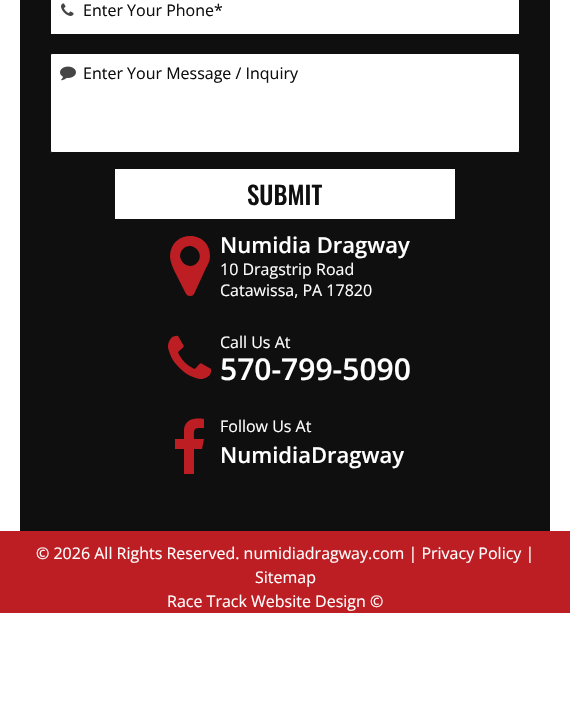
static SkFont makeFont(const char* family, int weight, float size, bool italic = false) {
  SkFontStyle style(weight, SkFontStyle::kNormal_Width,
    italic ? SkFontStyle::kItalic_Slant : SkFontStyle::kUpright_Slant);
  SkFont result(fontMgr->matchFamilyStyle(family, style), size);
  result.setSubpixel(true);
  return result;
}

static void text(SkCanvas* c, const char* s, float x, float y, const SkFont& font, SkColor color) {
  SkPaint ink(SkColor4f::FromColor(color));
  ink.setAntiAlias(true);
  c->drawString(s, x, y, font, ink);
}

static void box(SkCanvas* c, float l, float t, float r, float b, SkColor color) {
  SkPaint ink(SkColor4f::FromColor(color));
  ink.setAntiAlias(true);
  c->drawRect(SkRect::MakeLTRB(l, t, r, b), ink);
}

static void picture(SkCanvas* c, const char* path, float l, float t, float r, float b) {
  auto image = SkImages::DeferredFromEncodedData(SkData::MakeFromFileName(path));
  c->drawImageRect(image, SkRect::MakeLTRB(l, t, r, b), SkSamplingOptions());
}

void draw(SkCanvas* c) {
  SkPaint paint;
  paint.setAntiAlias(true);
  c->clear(0xffffffff);
  box(c, 20, 0, 550, 531, 0xff0f0f0f);
  box(c, 51, 0, 519, 34, 0xffffffff);
  picture(c, "img_01.png", 61, 3, 74, 16);
  SkFont face1 = makeFont("Open Sans", 400, 16);
  text(c, "Enter Your Phone*", 83, 16, face1, 0xff0f0f0f);
  paint.setColor(0xffffffff);
  c->drawRoundRect(SkRect::MakeLTRB(50.5f, 53.5f, 519.5f, 152.5f), 1.5f, 1.5f, paint);
  paint.setStyle(SkPaint::kStroke_Style);
  paint.setStrokeWidth(1);
  paint.setColor(0xff0f0f0f);
  c->drawRoundRect(SkRect::MakeLTRB(50.5f, 53.5f, 519.5f, 152.5f), 1.5f, 1.5f, paint);
  picture(c, "img_02.png", 60, 66, 76, 81);
  text(c, "Enter Your Message / Inquiry", 83, 79, face1, 0xff0f0f0f);
  box(c, 115, 169, 455, 219, 0xffffffff);
  SkFont face2 = makeFont("Oswald", 500, 25);
  text(c, "SUBMIT", 247, 205, face2, 0xff0f0f0f);
  paint.setStyle(SkPaint::kFill_Style);
  paint.setColor(0xffbd1e23);
  c->drawPath(SkPathBuilder().moveTo(197, 263).cubicTo(206, 254, 192, 240, 183, 249).cubicTo(174, 258, 188, 272, 197, 263).close().moveTo(210, 256).cubicTo(210, 261, 208, 264, 206, 268).lineTo(194, 294).cubicTo(193, 295, 192, 296, 191, 296).cubicTo(186, 297, 185, 291, 183, 288).lineTo(178, 278).cubicTo(175, 272, 170, 263, 170, 256).cubicTo(171, 229, 210, 230, 210, 256).close().detach(), paint);
  SkFont face3 = makeFont("Open Sans", 600, 22);
  text(c, "Numidia Dragway", 220, 253, face3, 0xffffffff);
  text(c, "10 Dragstrip Road", 220, 275, face1, 0xffffffff);
  text(c, "Catawissa, PA 17820", 220, 296, face1, 0xffffffff);
  picture(c, "img_03.png", 168, 335, 212, 379);
  text(c, "Call Us At", 220, 348, face1, 0xffffffff);
  SkFont face4 = makeFont("Open Sans", 600, 30);
  text(c, "570-799-5090", 220, 380, face4, 0xffffffff);
  c->drawPath(SkPathBuilder().moveTo(204, 419).lineTo(204, 428).cubicTo(193, 428, 194, 428, 194, 439).lineTo(204, 439).lineTo(202, 449).lineTo(194, 449).lineTo(194, 474).lineTo(184, 474).lineTo(184, 449).lineTo(175, 449).lineTo(175, 439).lineTo(184, 439).lineTo(184, 429).cubicTo(186, 418, 196, 418, 204, 419).close().detach(), paint);
  text(c, "Follow Us At", 220, 432, face1, 0xffffffff);
  text(c, "NumidiaDragway", 220, 463, face3, 0xffffffff);
  box(c, 0, 531, 570, 613, 0xffbd1e23);
  text(c, "© 2026 All Rights Reserved. numidiadragway.com | Privacy Policy |", 36, 559, face1, 0xffffffff);
  text(c, "Sitemap", 255, 583, face1, 0xffffffff);
  text(c, "Race Track Website Design ©", 167, 607, face1, 0xffffffff);
}
